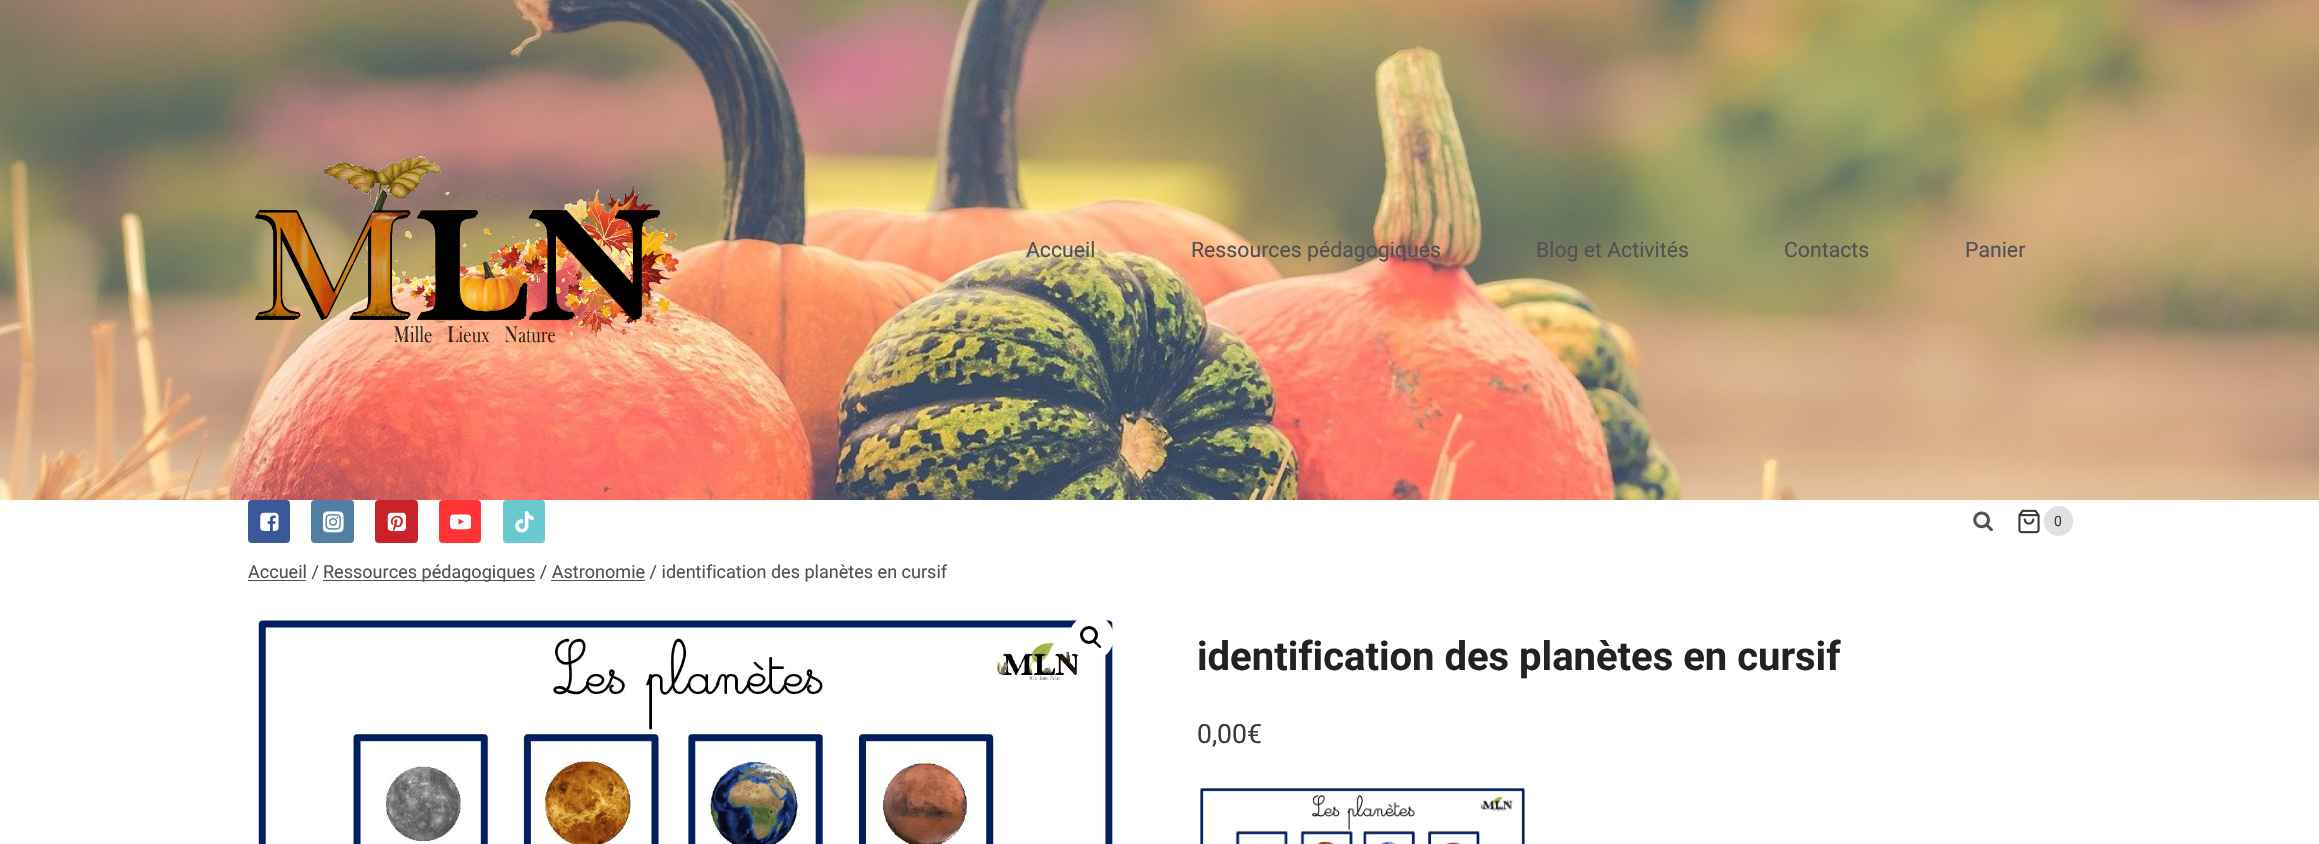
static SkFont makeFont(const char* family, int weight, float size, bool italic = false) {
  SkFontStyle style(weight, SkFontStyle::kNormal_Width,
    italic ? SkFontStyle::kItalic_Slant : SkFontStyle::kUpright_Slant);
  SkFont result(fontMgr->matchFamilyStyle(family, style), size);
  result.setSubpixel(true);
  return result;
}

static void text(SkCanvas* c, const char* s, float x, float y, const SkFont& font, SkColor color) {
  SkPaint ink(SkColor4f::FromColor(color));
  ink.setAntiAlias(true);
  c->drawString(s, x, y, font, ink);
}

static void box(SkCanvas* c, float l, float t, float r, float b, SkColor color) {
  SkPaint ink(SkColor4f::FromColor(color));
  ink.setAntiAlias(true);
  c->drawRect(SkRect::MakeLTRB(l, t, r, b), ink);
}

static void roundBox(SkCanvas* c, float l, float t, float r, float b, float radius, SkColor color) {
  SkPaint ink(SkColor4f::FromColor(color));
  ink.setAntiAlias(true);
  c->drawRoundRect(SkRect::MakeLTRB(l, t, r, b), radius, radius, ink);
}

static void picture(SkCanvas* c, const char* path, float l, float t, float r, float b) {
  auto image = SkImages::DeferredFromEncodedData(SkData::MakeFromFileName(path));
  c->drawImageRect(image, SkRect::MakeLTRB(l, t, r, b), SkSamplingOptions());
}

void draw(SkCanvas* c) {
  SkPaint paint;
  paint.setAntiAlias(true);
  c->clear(0xffffffff);
  picture(c, "img_01.png", 0, 0, 2319, 500);
  picture(c, "img_02.png", 255, 155, 680, 343);
  SkFont face1 = makeFont("Roboto", 400, 21.25f);
  text(c, "Accueil", 1026, 257, face1, 0xff515151);
  text(c, "Ressources pédagogiques", 1191, 257, face1, 0xff515151);
  text(c, "Blog et Activités", 1536, 257, face1, 0xff515151);
  text(c, "Contacts", 1784, 257, face1, 0xff515151);
  text(c, "Panier", 1965, 257, face1, 0xff515151);
  roundBox(c, 248, 500, 290, 543, 4, 0xff3b5998);
  picture(c, "img_03.png", 260, 512, 279, 531);
  roundBox(c, 311, 500, 354, 543, 4, 0xff517fa4);
  picture(c, "img_04.png", 323, 511, 344, 533);
  roundBox(c, 375, 500, 418, 543, 4, 0xffc92228);
  picture(c, "img_05.png", 387, 512, 406, 531);
  roundBox(c, 439, 500, 481, 543, 4, 0xffff3333);
  picture(c, "img_06.png", 450, 514, 471, 530);
  roundBox(c, 503, 500, 545, 543, 4, 0xff69c9d0);
  picture(c, "img_07.png", 515, 511, 534, 533);
  picture(c, "img_08.png", 1973, 511, 1993, 531);
  picture(c, "img_09.png", 2018, 509, 2040, 534);
  roundBox(c, 2044, 506, 2073, 536, 14.5f, 0xffe1e1e1);
  SkFont face2 = makeFont("Roboto", 400, 14);
  text(c, "0", 2054, 526, face2, 0xff3b3b3b);
  SkFont face3 = makeFont("Roboto", 400, 18.05f);
  text(c, "Accueil /", 248, 578, face3, 0xff515151);
  box(c, 248, 580, 306, 581, 0xff515151);
  box(c, 323, 580, 535, 581, 0xff515151);
  text(c, "Ressources pédagogiques / Astronomie / identification des planètes en cursif", 323, 578, face3, 0xff515151);
  box(c, 551, 580, 645, 581, 0xff515151);
  picture(c, "img_10.png", 257, 615, 1117, 844);
  paint.setColor(0xffffffff);
  c->drawCircle(1091.5f, 637.5f, 22.5f, paint);
  paint.setStyle(SkPaint::kStroke_Style);
  paint.setStrokeWidth(3);
  paint.setColor(0xff000000);
  c->drawCircle(1089, 635, 7.5f, paint);
  paint.setStyle(SkPaint::kFill_Style);
  c->drawPath(SkPathBuilder().moveTo(1093.5f, 640.5f).cubicTo(1095, 639, 1097.5f, 642.5f, 1098, 643.5f).cubicTo(1099, 644, 1102, 646.5f, 1101, 647.5f).cubicTo(1099.5f, 649, 1097, 646, 1096.5f, 645).cubicTo(1095.5f, 644.5f, 1092.5f, 642, 1093.5f, 640.5f).close().detach(), paint);
  SkFont face4 = makeFont("Roboto", 700, 40);
  text(c, "identification des planètes en cursif", 1197, 670, face4, 0xff222222);
  SkFont face5 = makeFont("Roboto", 400, 26.5f);
  text(c, "0,00€", 1197, 743, face5, 0xff3b3b3b);
  picture(c, "img_11.png", 1200, 787, 1526, 844);
}
